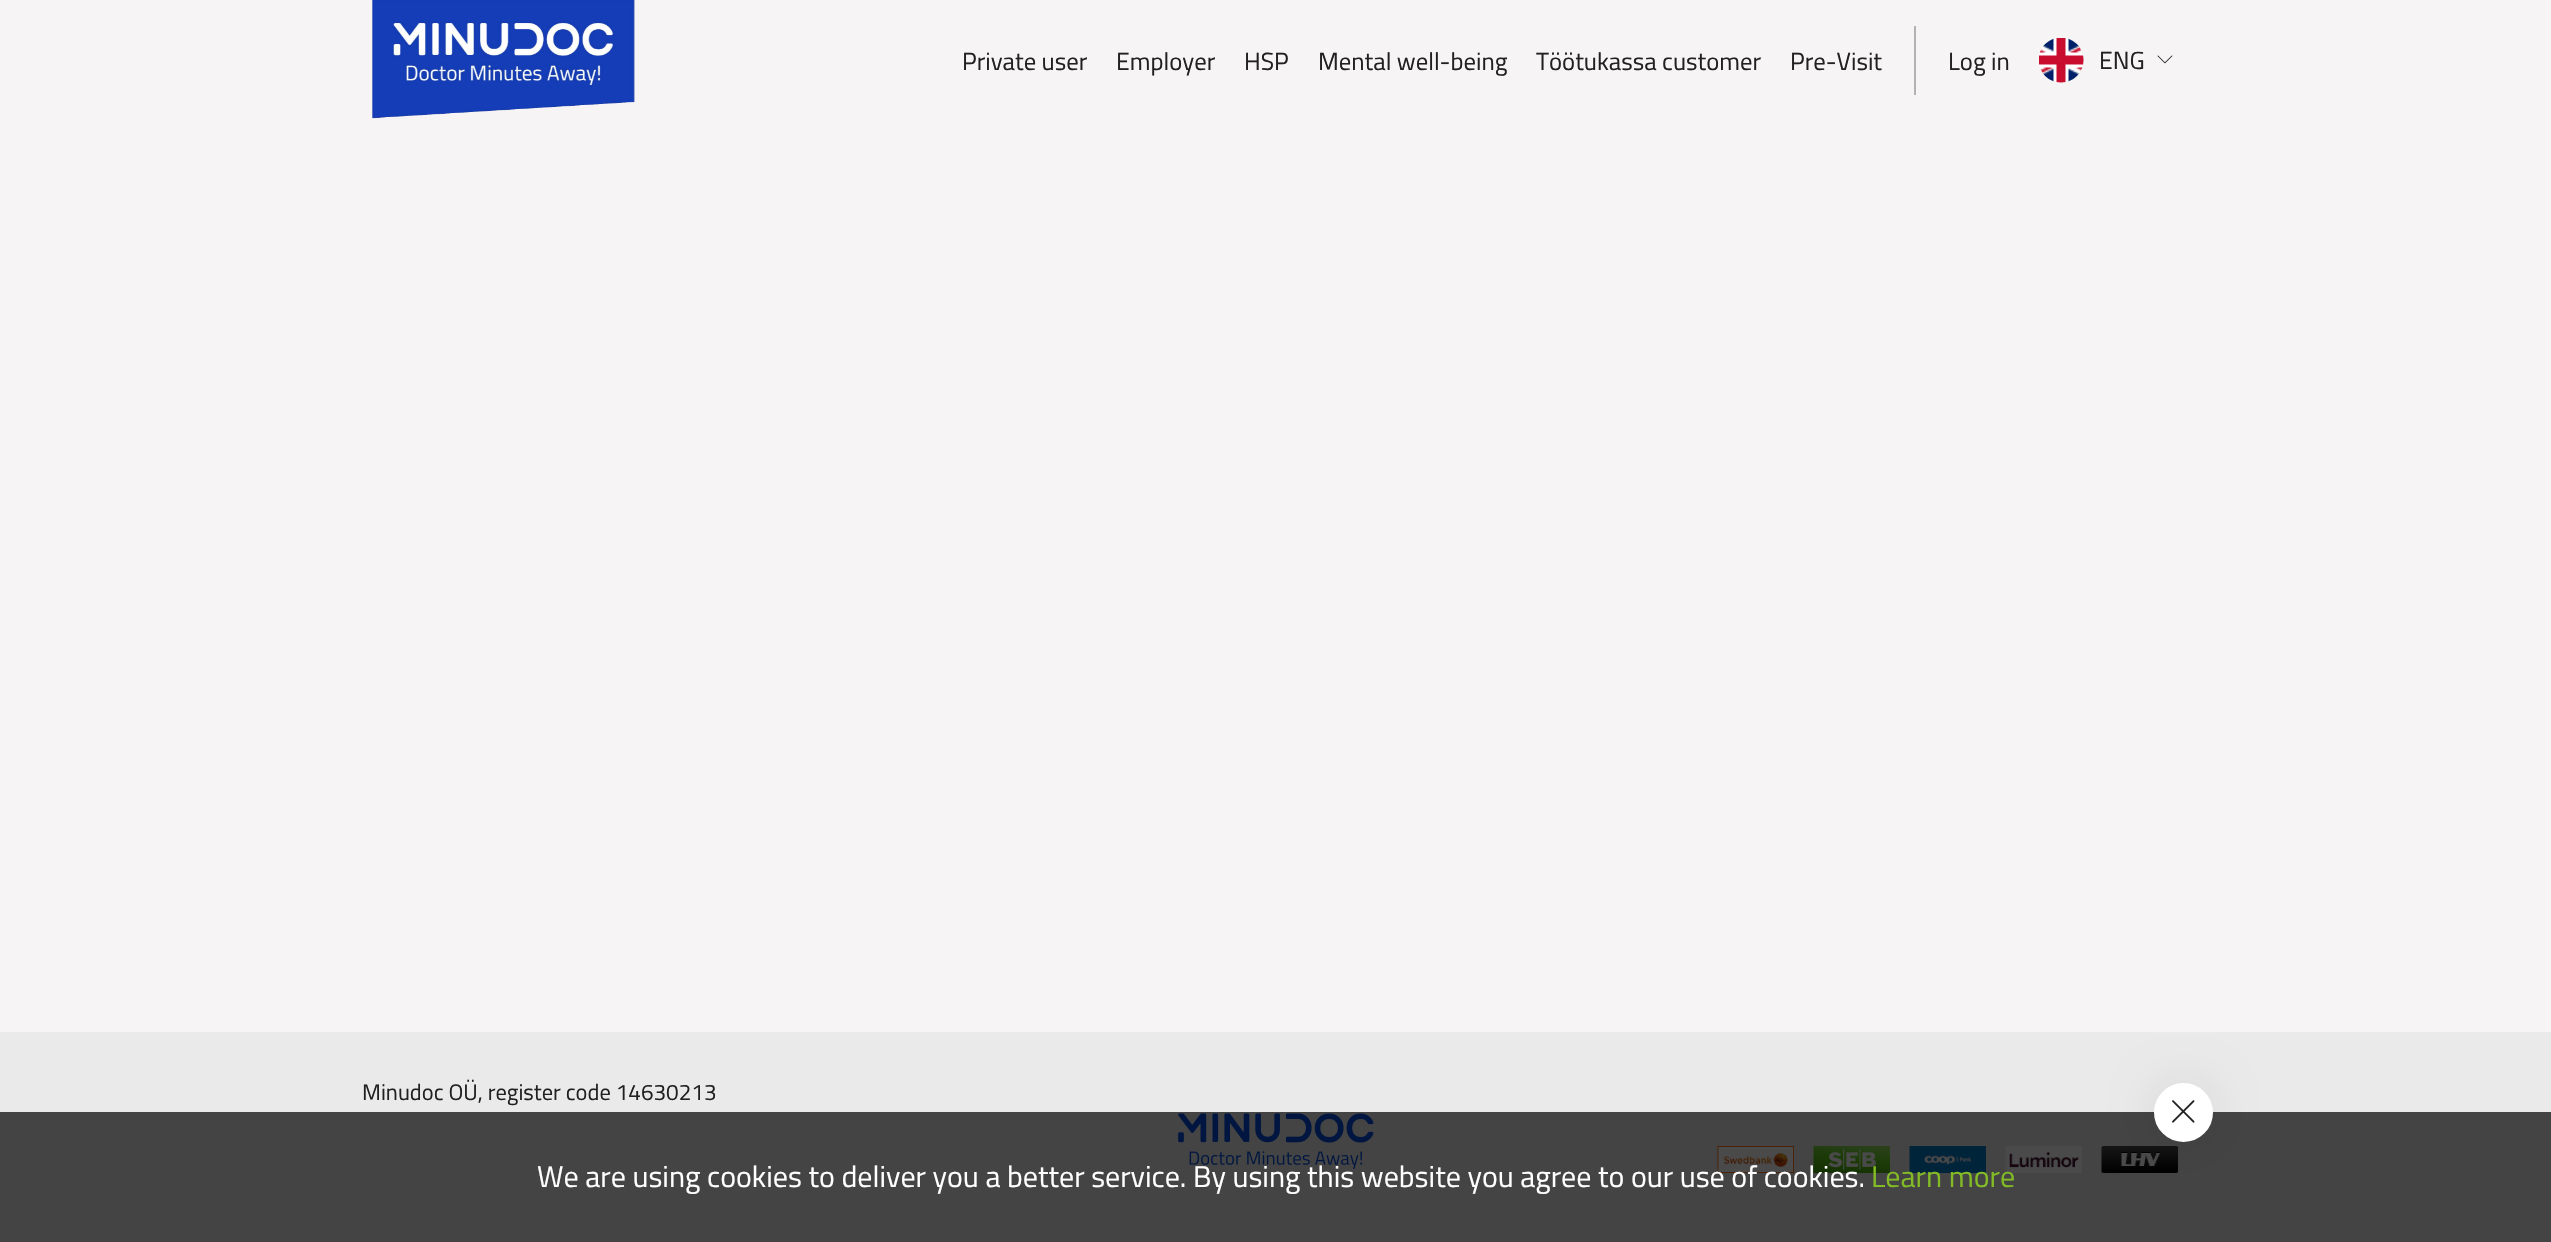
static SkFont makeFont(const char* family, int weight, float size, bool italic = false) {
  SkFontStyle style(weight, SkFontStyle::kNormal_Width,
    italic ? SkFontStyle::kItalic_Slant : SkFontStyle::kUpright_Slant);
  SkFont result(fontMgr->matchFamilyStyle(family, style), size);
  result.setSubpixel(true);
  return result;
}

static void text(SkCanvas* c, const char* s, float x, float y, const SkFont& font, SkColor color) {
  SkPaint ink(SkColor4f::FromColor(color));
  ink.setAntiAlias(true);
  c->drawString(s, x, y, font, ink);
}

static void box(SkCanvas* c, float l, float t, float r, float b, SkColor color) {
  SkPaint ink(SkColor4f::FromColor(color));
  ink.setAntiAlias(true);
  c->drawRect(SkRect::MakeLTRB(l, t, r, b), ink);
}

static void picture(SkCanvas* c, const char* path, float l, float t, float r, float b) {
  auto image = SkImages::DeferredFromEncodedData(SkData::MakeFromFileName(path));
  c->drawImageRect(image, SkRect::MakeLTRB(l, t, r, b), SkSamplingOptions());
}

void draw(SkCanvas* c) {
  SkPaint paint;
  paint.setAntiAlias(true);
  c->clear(0xfff6f4f4);
  picture(c, "img_01.png", 372, 0, 635, 119);
  SkFont face1 = makeFont("Titillium Web", 400, 24.75f);
  text(c, "Private user", 962, 70, face1, 0xff212121);
  text(c, "Employer", 1116, 70, face1, 0xff212121);
  text(c, "HSP", 1244, 70, face1, 0xff212121);
  text(c, "Mental well-being", 1318, 70, face1, 0xff212121);
  text(c, "Töötukassa customer", 1536, 70, face1, 0xff212121);
  text(c, "Pre-Visit", 1790, 70, face1, 0xff212121);
  box(c, 1914, 26, 1916, 95, 0xffb3b2b2);
  text(c, "Log in", 1948, 70, face1, 0xff212121);
  paint.setColor(0xffebeaea);
  c->drawCircle(2061.5f, 60.5f, 22.5f, paint);
  picture(c, "img_02.png", 2039, 38, 2084, 83);
  text(c, "ENG", 2099, 69, face1, 0xff212121);
  picture(c, "img_03.png", 2157, 55, 2173, 64);
  box(c, 0, 1032, 2551, 1242, 0xffebeaea);
  SkFont face2 = makeFont("Titillium Web", 400, 22.5f);
  text(c, "Minudoc OÜ, register code 14630213", 362, 1100, face2, 0xff212121);
  picture(c, "img_04.png", 1178, 1113, 1374, 1169);
  picture(c, "img_05.png", 1717, 1146, 1794, 1173);
  picture(c, "img_06.png", 1813, 1146, 1890, 1173);
  picture(c, "img_07.png", 1909, 1146, 1986, 1173);
  picture(c, "img_08.png", 2005, 1146, 2082, 1173);
  picture(c, "img_09.png", 2101, 1146, 2178, 1173);
  box(c, 0, 1112, 2551, 1242, 0xb5000000);
  SkFont face3 = makeFont("Titillium Web", 400, 30);
  text(c, "We are using cookies to deliver you a better service. By using this website you agree to our use of cookies.", 537, 1187, face3, 0xffffffff);
  text(c, "Learn more", 1871, 1187, face3, 0xff82bb25);
  paint.setColor(0x12000000);
  paint.setMaskFilter(SkMaskFilter::MakeBlur(kNormal_SkBlurStyle, 19.5f));
  c->drawRoundRect(SkRect::MakeLTRB(2150, 1079, 2217, 1146), 33.5f, 33.5f, paint);
  paint.setMaskFilter(nullptr);
  paint.setColor(0xffffffff);
  c->drawCircle(2183.5f, 1112.5f, 28.5f, paint);
  paint.setStyle(SkPaint::kStroke_Style);
  paint.setStrokeWidth(2);
  c->drawCircle(2183.5f, 1112.5f, 28.5f, paint);
  picture(c, "img_10.png", 2172, 1100, 2195, 1123);
}
